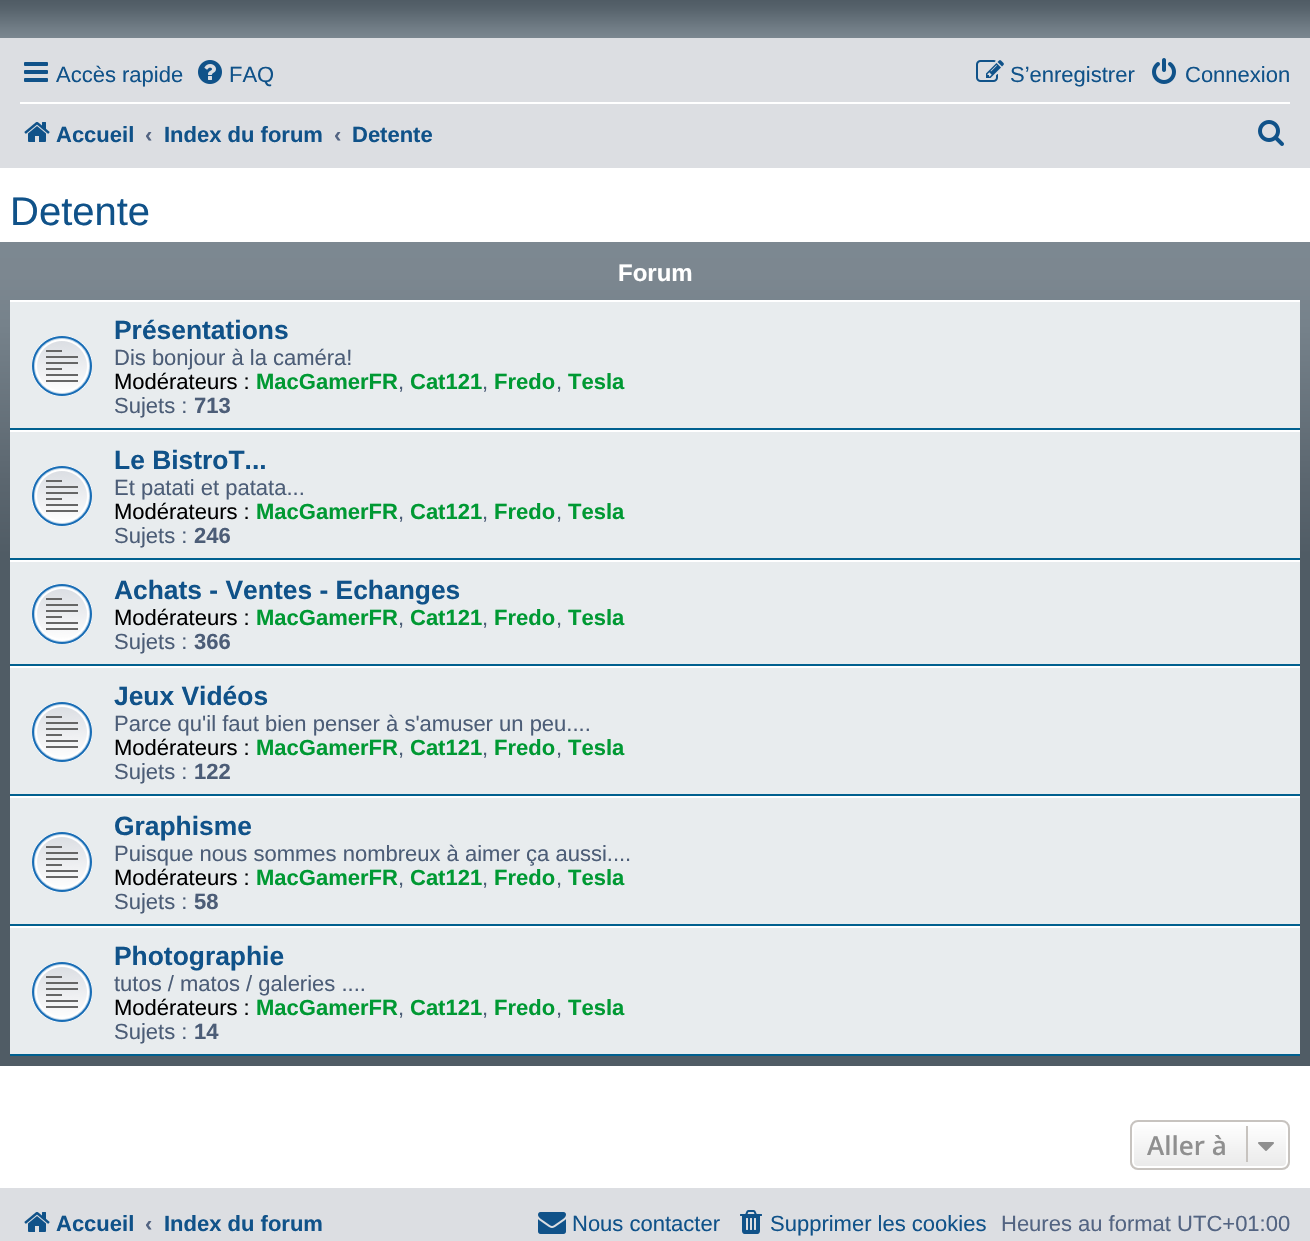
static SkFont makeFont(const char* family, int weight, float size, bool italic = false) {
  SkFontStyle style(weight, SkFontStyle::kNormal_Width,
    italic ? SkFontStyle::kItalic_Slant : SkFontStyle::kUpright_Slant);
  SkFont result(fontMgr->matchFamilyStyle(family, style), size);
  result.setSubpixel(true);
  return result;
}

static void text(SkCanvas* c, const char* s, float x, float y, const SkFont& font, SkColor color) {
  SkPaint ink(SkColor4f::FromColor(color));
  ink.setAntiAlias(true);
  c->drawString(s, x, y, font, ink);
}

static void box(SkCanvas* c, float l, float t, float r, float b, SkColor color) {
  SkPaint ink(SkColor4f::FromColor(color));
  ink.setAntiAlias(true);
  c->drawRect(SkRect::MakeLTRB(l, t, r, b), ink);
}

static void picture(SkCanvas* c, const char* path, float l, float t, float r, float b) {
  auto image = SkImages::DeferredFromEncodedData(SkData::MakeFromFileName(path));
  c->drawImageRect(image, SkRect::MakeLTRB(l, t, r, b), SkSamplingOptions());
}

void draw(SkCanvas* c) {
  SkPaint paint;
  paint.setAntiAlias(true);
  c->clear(0xffffffff);
  {
    const SkColor colors[] = {0xff6e777f, 0xff505c65, 0xff56626b, 0xff737f88, 0xff7c8891};
    const float stops[] = {0, 0.01f, 0.2f, 0.75f, 1};
    const SkPoint ends[] = {{655, 0}, {655, 40}};
    paint.setShader(SkGradientShader::MakeLinear(ends, colors, stops, 5, SkTileMode::kClamp));
    paint.setAlpha(255);
  }
  c->drawRect(SkRect::MakeLTRB(0, 0, 1310, 38), paint);
  box(c, 0, 38, 1310, 168, 0xffdcdee2);
  picture(c, "img_01.png", 24, 62, 48, 82);
  SkFont face1 = makeFont("Liberation Sans", 400, 22);
  text(c, "Accès rapide", 56, 82, face1, 0xff105289);
  picture(c, "img_02.png", 198, 60, 222, 84);
  text(c, "FAQ", 229, 82, face1, 0xff105289);
  picture(c, "img_03.png", 976, 60, 1004, 82);
  text(c, "S’enregistrer", 1010, 82, face1, 0xff105289);
  picture(c, "img_04.png", 1152, 58, 1176, 84);
  text(c, "Connexion", 1185, 82, face1, 0xff105289);
  box(c, 20, 102, 1290, 104, 0xffffffff);
  picture(c, "img_05.png", 24, 122, 50, 142);
  SkFont face2 = makeFont("Liberation Sans", 700, 22);
  text(c, "Accueil", 56, 142, face2, 0xff105289);
  text(c, "‹", 145, 142, face2, 0xff536482);
  text(c, "Index du forum", 164, 142, face2, 0xff105289);
  text(c, "‹", 334, 142, face2, 0xff536482);
  text(c, "Detente", 352, 142, face2, 0xff105289);
  picture(c, "img_06.png", 1258, 120, 1284, 146);
  SkFont face3 = makeFont("Liberation Sans", 400, 40);
  text(c, "Detente", 10, 225, face3, 0xff105289);
  {
    const SkColor colors[] = {0xff7c8891, 0xff7c8790, 0xff76828b, 0xff5b666f, 0xff505c65, 0xff505c65};
    const float stops[] = {0, 0.04f, 0.1f, 0.29f, 0.38f, 1};
    const SkPoint ends[] = {{655, 242}, {655, 1066}};
    paint.setShader(SkGradientShader::MakeLinear(ends, colors, stops, 6, SkTileMode::kClamp));
    paint.setAlpha(255);
  }
  c->drawRect(SkRect::MakeLTRB(0, 242, 1310, 1066), paint);
  SkFont face4 = makeFont("Liberation Sans", 700, 24);
  text(c, "Forum", 618, 281, face4, 0xffffffff);
  box(c, 10, 302, 1300, 428, 0xffe8ecee);
  box(c, 10, 300, 1300, 302, 0xffffffff);
  box(c, 10, 428, 1300, 430, 0xff00608f);
  picture(c, "img_07.png", 32, 336, 92, 396);
  SkFont face5 = makeFont("Liberation Sans", 700, 26.4f);
  text(c, "Présentations", 114, 339, face5, 0xff105289);
  text(c, "Dis bonjour à la caméra!", 114, 365, face1, 0xff4c5d77);
  text(c, "Modérateurs :", 114, 389, face1, 0xff000000);
  text(c, "MacGamerFR", 256, 389, face2, 0xff009933);
  text(c, ",", 398, 389, face1, 0xff4c5d77);
  text(c, "Cat121", 410, 389, face2, 0xff009933);
  text(c, ",", 482, 389, face1, 0xff4c5d77);
  text(c, "Fredo", 494, 389, face2, 0xff009933);
  text(c, ",", 556, 389, face1, 0xff4c5d77);
  text(c, "Tesla", 568, 389, face2, 0xff009933);
  text(c, "Sujets :", 114, 413, face1, 0xff4c5d77);
  text(c, "713", 194, 413, face2, 0xff4c5d77);
  box(c, 10, 432, 1300, 558, 0xffe8ecee);
  box(c, 10, 430, 1300, 432, 0xffffffff);
  box(c, 10, 558, 1300, 560, 0xff00608f);
  picture(c, "img_07.png", 32, 466, 92, 526);
  text(c, "Le BistroT...", 114, 469, face5, 0xff105289);
  text(c, "Et patati et patata...", 114, 495, face1, 0xff4c5d77);
  text(c, "Modérateurs :", 114, 519, face1, 0xff000000);
  text(c, "MacGamerFR", 256, 519, face2, 0xff009933);
  text(c, ",", 398, 519, face1, 0xff4c5d77);
  text(c, "Cat121", 410, 519, face2, 0xff009933);
  text(c, ",", 482, 519, face1, 0xff4c5d77);
  text(c, "Fredo", 494, 519, face2, 0xff009933);
  text(c, ",", 556, 519, face1, 0xff4c5d77);
  text(c, "Tesla", 568, 519, face2, 0xff009933);
  text(c, "Sujets :", 114, 543, face1, 0xff4c5d77);
  text(c, "246", 194, 543, face2, 0xff4c5d77);
  box(c, 10, 562, 1300, 664, 0xffe8ecee);
  box(c, 10, 560, 1300, 562, 0xffffffff);
  box(c, 10, 664, 1300, 666, 0xff00608f);
  picture(c, "img_07.png", 32, 584, 92, 644);
  text(c, "Achats - Ventes - Echanges", 114, 599, face5, 0xff105289);
  text(c, "Modérateurs :", 114, 625, face1, 0xff000000);
  text(c, "MacGamerFR", 256, 625, face2, 0xff009933);
  text(c, ",", 398, 625, face1, 0xff4c5d77);
  text(c, "Cat121", 410, 625, face2, 0xff009933);
  text(c, ",", 482, 625, face1, 0xff4c5d77);
  text(c, "Fredo", 494, 625, face2, 0xff009933);
  text(c, ",", 556, 625, face1, 0xff4c5d77);
  text(c, "Tesla", 568, 625, face2, 0xff009933);
  text(c, "Sujets :", 114, 649, face1, 0xff4c5d77);
  text(c, "366", 194, 649, face2, 0xff4c5d77);
  box(c, 10, 668, 1300, 794, 0xffe8ecee);
  box(c, 10, 666, 1300, 668, 0xffffffff);
  box(c, 10, 794, 1300, 796, 0xff00608f);
  picture(c, "img_07.png", 32, 702, 92, 762);
  text(c, "Jeux Vidéos", 114, 705, face5, 0xff105289);
  text(c, "Parce qu'il faut bien penser à s'amuser un peu....", 114, 731, face1, 0xff4c5d77);
  text(c, "Modérateurs :", 114, 755, face1, 0xff000000);
  text(c, "MacGamerFR", 256, 755, face2, 0xff009933);
  text(c, ",", 398, 755, face1, 0xff4c5d77);
  text(c, "Cat121", 410, 755, face2, 0xff009933);
  text(c, ",", 482, 755, face1, 0xff4c5d77);
  text(c, "Fredo", 494, 755, face2, 0xff009933);
  text(c, ",", 556, 755, face1, 0xff4c5d77);
  text(c, "Tesla", 568, 755, face2, 0xff009933);
  text(c, "Sujets :", 114, 779, face1, 0xff4c5d77);
  text(c, "122", 194, 779, face2, 0xff4c5d77);
  box(c, 10, 798, 1300, 924, 0xffe8ecee);
  box(c, 10, 796, 1300, 798, 0xffffffff);
  box(c, 10, 924, 1300, 926, 0xff00608f);
  picture(c, "img_07.png", 32, 832, 92, 892);
  text(c, "Graphisme", 114, 835, face5, 0xff105289);
  text(c, "Puisque nous sommes nombreux à aimer ça aussi....", 114, 861, face1, 0xff4c5d77);
  text(c, "Modérateurs :", 114, 885, face1, 0xff000000);
  text(c, "MacGamerFR", 256, 885, face2, 0xff009933);
  text(c, ",", 398, 885, face1, 0xff4c5d77);
  text(c, "Cat121", 410, 885, face2, 0xff009933);
  text(c, ",", 482, 885, face1, 0xff4c5d77);
  text(c, "Fredo", 494, 885, face2, 0xff009933);
  text(c, ",", 556, 885, face1, 0xff4c5d77);
  text(c, "Tesla", 568, 885, face2, 0xff009933);
  text(c, "Sujets :", 114, 909, face1, 0xff4c5d77);
  text(c, "58", 194, 909, face2, 0xff4c5d77);
  box(c, 10, 928, 1300, 1054, 0xffe8ecee);
  box(c, 10, 926, 1300, 928, 0xffffffff);
  box(c, 10, 1054, 1300, 1056, 0xff00608f);
  picture(c, "img_07.png", 32, 962, 92, 1022);
  text(c, "Photographie", 114, 965, face5, 0xff105289);
  text(c, "tutos / matos / galeries ....", 114, 991, face1, 0xff4c5d77);
  text(c, "Modérateurs :", 114, 1015, face1, 0xff000000);
  text(c, "MacGamerFR", 256, 1015, face2, 0xff009933);
  text(c, ",", 398, 1015, face1, 0xff4c5d77);
  text(c, "Cat121", 410, 1015, face2, 0xff009933);
  text(c, ",", 482, 1015, face1, 0xff4c5d77);
  text(c, "Fredo", 494, 1015, face2, 0xff009933);
  text(c, ",", 556, 1015, face1, 0xff4c5d77);
  text(c, "Tesla", 568, 1015, face2, 0xff009933);
  text(c, "Sujets :", 114, 1039, face1, 0xff4c5d77);
  text(c, "14", 194, 1039, face2, 0xff4c5d77);
  c->save();
  c->clipPath(SkPathBuilder().moveTo(1138, 1120).lineTo(1282, 1120).cubicTo(1286.5f, 1120, 1290, 1123.5f, 1290, 1128).lineTo(1290, 1162).cubicTo(1290, 1166.5f, 1286.5f, 1170, 1282, 1170).lineTo(1138, 1170).cubicTo(1133.5f, 1170, 1130, 1166.5f, 1130, 1162).lineTo(1130, 1128).cubicTo(1130, 1123.5f, 1133.5f, 1120, 1138, 1120).close().detach(), true);
  {
    const SkColor colors[] = {0xffffffff, 0xffe9e9e9};
    const float stops[] = {0, 1};
    const SkPoint ends[] = {{1210, 1122}, {1210, 1168}};
    paint.setShader(SkGradientShader::MakeLinear(ends, colors, stops, 2, SkTileMode::kClamp));
    paint.setAlpha(255);
  }
  c->drawRect(SkRect::MakeLTRB(1130, 1122, 1290, 1168), paint);
  c->restore();
  paint.setStyle(SkPaint::kStroke_Style);
  paint.setStrokeWidth(2);
  paint.setShader(nullptr);
  paint.setColor(0xffffffff);
  c->drawRoundRect(SkRect::MakeLTRB(1133, 1123, 1287, 1167), 5, 5, paint);
  paint.setColor(0xffc7c3bf);
  c->drawRoundRect(SkRect::MakeLTRB(1131, 1121, 1289, 1169), 7, 7, paint);
  SkFont face6 = makeFont("Open Sans", 600, 26);
  text(c, "Aller à", 1147, 1155, face6, 0xff8f8f8f);
  box(c, 1246, 1126, 1248, 1162, 0xffc7c3bf);
  picture(c, "img_08.png", 1258, 1142, 1274, 1151);
  box(c, 0, 1188, 1310, 1241, 0xffdcdee2);
  picture(c, "img_05.png", 24, 1212, 50, 1232);
  text(c, "Accueil", 56, 1231, face2, 0xff105289);
  text(c, "‹", 145, 1231, face2, 0xff536482);
  text(c, "Index du forum", 164, 1231, face2, 0xff105289);
  picture(c, "img_09.png", 538, 1212, 566, 1234);
  text(c, "Nous contacter", 572, 1231, face1, 0xff105289);
  picture(c, "img_10.png", 740, 1210, 762, 1234);
  text(c, "Supprimer les cookies", 770, 1231, face1, 0xff105289);
  text(c, "Heures au format UTC+01:00", 1001, 1231, face1, 0xff536482);
}
